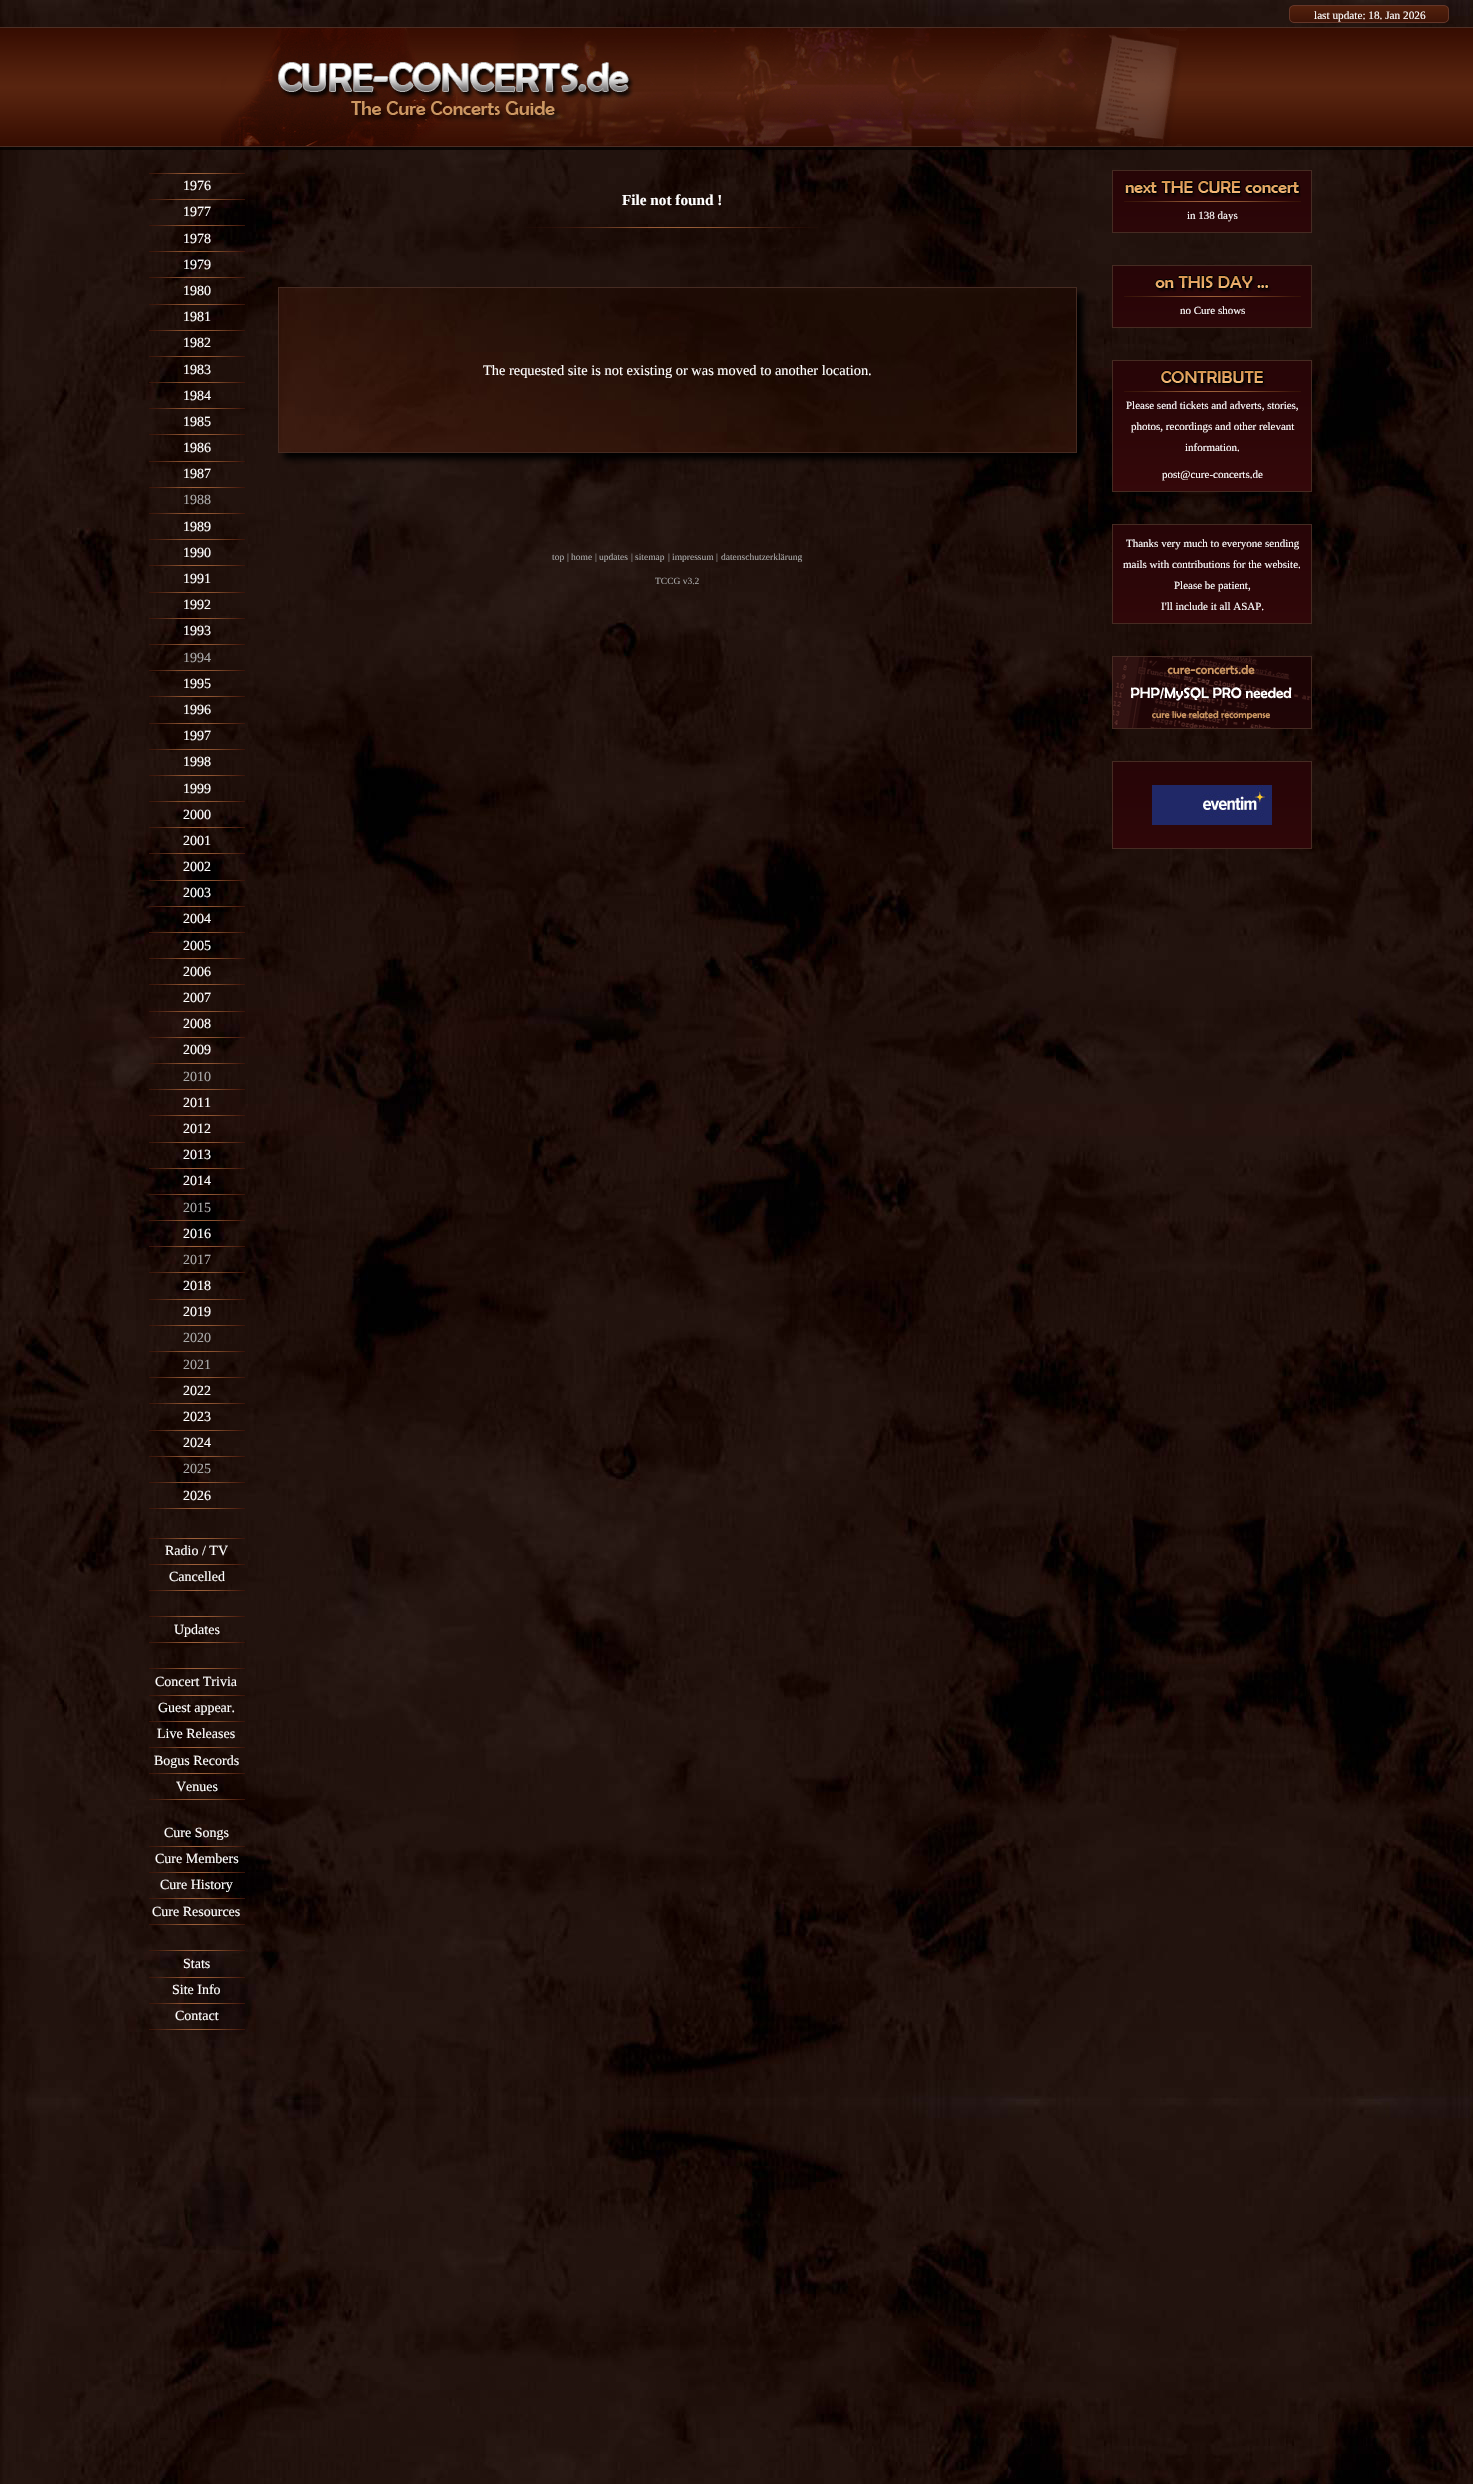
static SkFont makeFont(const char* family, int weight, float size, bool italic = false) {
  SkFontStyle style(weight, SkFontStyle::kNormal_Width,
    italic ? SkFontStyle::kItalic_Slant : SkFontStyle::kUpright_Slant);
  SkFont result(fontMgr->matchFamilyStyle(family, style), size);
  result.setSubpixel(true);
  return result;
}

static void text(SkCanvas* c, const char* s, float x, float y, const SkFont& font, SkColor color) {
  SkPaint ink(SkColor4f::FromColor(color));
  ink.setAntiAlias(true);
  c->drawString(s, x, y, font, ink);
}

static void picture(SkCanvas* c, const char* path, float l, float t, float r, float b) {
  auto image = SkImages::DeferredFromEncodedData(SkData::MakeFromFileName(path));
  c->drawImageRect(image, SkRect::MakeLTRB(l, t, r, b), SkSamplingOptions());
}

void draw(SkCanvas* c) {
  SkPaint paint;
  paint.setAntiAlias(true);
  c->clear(0xffffffff);
  picture(c, "img_01.png", 0, 0, 1473, 2484);
  c->save();
  c->clipPath(SkPathBuilder().moveTo(1294, 5).lineTo(1444, 5).cubicTo(1447, 5, 1449, 7, 1449, 10).lineTo(1449, 18).cubicTo(1449, 21, 1447, 23, 1444, 23).lineTo(1294, 23).cubicTo(1291, 23, 1289, 21, 1289, 18).lineTo(1289, 10).cubicTo(1289, 7, 1291, 5, 1294, 5).close().detach(), true);
  {
    const SkColor colors[] = {0xff53210d, 0xff3e1407};
    const float stops[] = {0, 1};
    const SkPoint ends[] = {{1369, 6}, {1369, 22}};
    paint.setShader(SkGradientShader::MakeLinear(ends, colors, stops, 2, SkTileMode::kClamp));
    paint.setAlpha(255);
  }
  c->drawRect(SkRect::MakeLTRB(1289, 6, 1449, 22), paint);
  c->restore();
  paint.setStyle(SkPaint::kStroke_Style);
  paint.setStrokeWidth(1);
  paint.setShader(nullptr);
  paint.setColor(0xff653628);
  c->drawRoundRect(SkRect::MakeLTRB(1289.5f, 5.5f, 1448.5f, 22.5f), 4.5f, 4.5f, paint);
  SkFont face1 = makeFont("Liberation Serif", 400, 11.25f);
  text(c, "last update: 18. Jan 2026", 1314, 19, face1, 0xffffffff);
  picture(c, "img_02.png", 0, 27, 1473, 150);
  picture(c, "img_03.png", 221, 28, 345, 147);
  picture(c, "img_04.png", 345, 27, 1021, 147);
  picture(c, "img_05.png", 1021, 27, 1242, 147);
  picture(c, "img_06.png", 278, 62, 634, 122);
  picture(c, "img_07.png", 149, 173, 245, 174);
  SkFont face2 = makeFont("Liberation Serif", 400, 14);
  text(c, "1976", 183, 190, face2, 0xffffffff);
  picture(c, "img_07.png", 149, 199, 245, 200);
  text(c, "1977", 183, 216, face2, 0xffffffff);
  picture(c, "img_07.png", 149, 225, 245, 226);
  text(c, "1978", 183, 243, face2, 0xffffffff);
  picture(c, "img_07.png", 149, 251, 245, 252);
  text(c, "1979", 183, 269, face2, 0xffffffff);
  picture(c, "img_07.png", 149, 277, 245, 278);
  text(c, "1980", 183, 295, face2, 0xffffffff);
  picture(c, "img_07.png", 149, 304, 245, 305);
  text(c, "1981", 183, 321, face2, 0xffffffff);
  picture(c, "img_07.png", 149, 330, 245, 331);
  text(c, "1982", 183, 347, face2, 0xffffffff);
  picture(c, "img_07.png", 149, 356, 245, 357);
  text(c, "1983", 183, 374, face2, 0xffffffff);
  picture(c, "img_07.png", 149, 382, 245, 383);
  text(c, "1984", 183, 400, face2, 0xffffffff);
  picture(c, "img_07.png", 149, 408, 245, 409);
  text(c, "1985", 183, 426, face2, 0xffffffff);
  picture(c, "img_07.png", 149, 434, 245, 435);
  text(c, "1986", 183, 452, face2, 0xffffffff);
  picture(c, "img_07.png", 149, 461, 245, 462);
  text(c, "1987", 183, 478, face2, 0xffffffff);
  picture(c, "img_07.png", 149, 487, 245, 488);
  text(c, "1988", 183, 504, face2, 0xffaaaaaa);
  picture(c, "img_07.png", 149, 513, 245, 514);
  text(c, "1989", 183, 531, face2, 0xffffffff);
  picture(c, "img_07.png", 149, 539, 245, 540);
  text(c, "1990", 183, 557, face2, 0xffffffff);
  picture(c, "img_07.png", 149, 565, 245, 566);
  text(c, "1991", 183, 583, face2, 0xffffffff);
  picture(c, "img_07.png", 149, 592, 245, 593);
  text(c, "1992", 183, 609, face2, 0xffffffff);
  picture(c, "img_07.png", 149, 618, 245, 619);
  text(c, "1993", 183, 635, face2, 0xffffffff);
  picture(c, "img_07.png", 149, 644, 245, 645);
  text(c, "1994", 183, 662, face2, 0xffaaaaaa);
  picture(c, "img_07.png", 149, 670, 245, 671);
  text(c, "1995", 183, 688, face2, 0xffffffff);
  picture(c, "img_07.png", 149, 696, 245, 697);
  text(c, "1996", 183, 714, face2, 0xffffffff);
  picture(c, "img_07.png", 149, 723, 245, 724);
  text(c, "1997", 183, 740, face2, 0xffffffff);
  picture(c, "img_07.png", 149, 749, 245, 750);
  text(c, "1998", 183, 766, face2, 0xffffffff);
  picture(c, "img_07.png", 149, 775, 245, 776);
  text(c, "1999", 183, 793, face2, 0xffffffff);
  picture(c, "img_07.png", 149, 801, 245, 802);
  text(c, "2000", 183, 819, face2, 0xffffffff);
  picture(c, "img_07.png", 149, 827, 245, 828);
  text(c, "2001", 183, 845, face2, 0xffffffff);
  picture(c, "img_07.png", 149, 853, 245, 854);
  text(c, "2002", 183, 871, face2, 0xffffffff);
  picture(c, "img_07.png", 149, 880, 245, 881);
  text(c, "2003", 183, 897, face2, 0xffffffff);
  picture(c, "img_07.png", 149, 906, 245, 907);
  text(c, "2004", 183, 923, face2, 0xffffffff);
  picture(c, "img_07.png", 149, 932, 245, 933);
  text(c, "2005", 183, 950, face2, 0xffffffff);
  picture(c, "img_07.png", 149, 958, 245, 959);
  text(c, "2006", 183, 976, face2, 0xffffffff);
  picture(c, "img_07.png", 149, 984, 245, 985);
  text(c, "2007", 183, 1002, face2, 0xffffffff);
  picture(c, "img_07.png", 149, 1011, 245, 1012);
  text(c, "2008", 183, 1028, face2, 0xffffffff);
  picture(c, "img_07.png", 149, 1037, 245, 1038);
  text(c, "2009", 183, 1054, face2, 0xffffffff);
  picture(c, "img_07.png", 149, 1063, 245, 1064);
  text(c, "2010", 183, 1081, face2, 0xffaaaaaa);
  picture(c, "img_07.png", 149, 1089, 245, 1090);
  text(c, "2011", 183, 1107, face2, 0xffffffff);
  picture(c, "img_07.png", 149, 1115, 245, 1116);
  text(c, "2012", 183, 1133, face2, 0xffffffff);
  picture(c, "img_07.png", 149, 1142, 245, 1143);
  text(c, "2013", 183, 1159, face2, 0xffffffff);
  picture(c, "img_07.png", 149, 1168, 245, 1169);
  text(c, "2014", 183, 1185, face2, 0xffffffff);
  picture(c, "img_07.png", 149, 1194, 245, 1195);
  text(c, "2015", 183, 1212, face2, 0xffaaaaaa);
  picture(c, "img_07.png", 149, 1220, 245, 1221);
  text(c, "2016", 183, 1238, face2, 0xffffffff);
  picture(c, "img_07.png", 149, 1246, 245, 1247);
  text(c, "2017", 183, 1264, face2, 0xffaaaaaa);
  picture(c, "img_07.png", 149, 1272, 245, 1273);
  text(c, "2018", 183, 1290, face2, 0xffffffff);
  picture(c, "img_07.png", 149, 1299, 245, 1300);
  text(c, "2019", 183, 1316, face2, 0xffffffff);
  picture(c, "img_07.png", 149, 1325, 245, 1326);
  text(c, "2020", 183, 1342, face2, 0xffaaaaaa);
  picture(c, "img_07.png", 149, 1351, 245, 1352);
  text(c, "2021", 183, 1369, face2, 0xffaaaaaa);
  picture(c, "img_07.png", 149, 1377, 245, 1378);
  text(c, "2022", 183, 1395, face2, 0xffffffff);
  picture(c, "img_07.png", 149, 1403, 245, 1404);
  text(c, "2023", 183, 1421, face2, 0xffffffff);
  picture(c, "img_07.png", 149, 1430, 245, 1431);
  text(c, "2024", 183, 1447, face2, 0xffffffff);
  picture(c, "img_07.png", 149, 1456, 245, 1457);
  text(c, "2025", 183, 1473, face2, 0xffaaaaaa);
  picture(c, "img_07.png", 149, 1482, 245, 1483);
  text(c, "2026", 183, 1500, face2, 0xffffffff);
  picture(c, "img_07.png", 149, 1508, 245, 1509);
  picture(c, "img_07.png", 149, 1538, 245, 1539);
  text(c, "Radio / TV", 165, 1555, face2, 0xffffffff);
  picture(c, "img_07.png", 149, 1564, 245, 1565);
  text(c, "Cancelled", 169, 1581, face2, 0xffffffff);
  picture(c, "img_07.png", 149, 1590, 245, 1591);
  picture(c, "img_07.png", 149, 1616, 245, 1617);
  text(c, "Updates", 174, 1634, face2, 0xffffffff);
  picture(c, "img_07.png", 149, 1642, 245, 1643);
  picture(c, "img_07.png", 149, 1668, 245, 1669);
  text(c, "Concert Trivia", 155, 1686, face2, 0xffffffff);
  picture(c, "img_07.png", 149, 1695, 245, 1696);
  text(c, "Guest appear.", 158, 1712, face2, 0xffffffff);
  picture(c, "img_07.png", 149, 1721, 245, 1722);
  text(c, "Live Releases", 157, 1738, face2, 0xffffffff);
  picture(c, "img_07.png", 149, 1747, 245, 1748);
  text(c, "Bogus Records", 154, 1765, face2, 0xffffffff);
  picture(c, "img_07.png", 149, 1773, 245, 1774);
  text(c, "Venues", 176, 1791, face2, 0xffffffff);
  picture(c, "img_07.png", 149, 1799, 245, 1800);
  text(c, "Cure Songs", 164, 1837, face2, 0xffffffff);
  picture(c, "img_07.png", 149, 1846, 245, 1847);
  text(c, "Cure Members", 155, 1863, face2, 0xffffffff);
  picture(c, "img_07.png", 149, 1872, 245, 1873);
  text(c, "Cure History", 160, 1889, face2, 0xffffffff);
  picture(c, "img_07.png", 149, 1898, 245, 1899);
  text(c, "Cure Resources", 152, 1916, face2, 0xffffffff);
  picture(c, "img_07.png", 149, 1924, 245, 1925);
  picture(c, "img_07.png", 149, 1950, 245, 1951);
  text(c, "Stats", 183, 1968, face2, 0xffffffff);
  picture(c, "img_07.png", 149, 1977, 245, 1978);
  text(c, "Site Info", 172, 1994, face2, 0xffffffff);
  picture(c, "img_07.png", 149, 2003, 245, 2004);
  text(c, "Contact", 175, 2020, face2, 0xffffffff);
  picture(c, "img_07.png", 149, 2029, 245, 2030);
  SkFont face3 = makeFont("Liberation Serif", 700, 15.25f);
  text(c, "File not found !", 622, 205, face3, 0xffffffff);
  picture(c, "img_08.png", 526, 227, 818, 228);
  paint.setStyle(SkPaint::kFill_Style);
  paint.setColor(0xff000000);
  paint.setMaskFilter(SkMaskFilter::MakeBlur(kNormal_SkBlurStyle, 3));
  c->drawRect(SkRect::MakeLTRB(284, 293, 1083, 459), paint);
  paint.setMaskFilter(nullptr);
  picture(c, "img_09.png", 279, 288, 1076, 452);
  paint.setStyle(SkPaint::kStroke_Style);
  paint.setColor(0xff462b22);
  c->drawRect(SkRect::MakeLTRB(278.5f, 287.5f, 1076.5f, 452.5f), paint);
  SkFont face4 = makeFont("Liberation Serif", 400, 14.4f);
  text(c, "The requested site is not existing or was moved to another location.", 483, 375, face4, 0xffffffff);
  SkFont face5 = makeFont("Liberation Serif", 400, 9.5f);
  text(c, "top", 552, 560, face5, 0xffaaaaaa);
  text(c, "|", 567, 560, face5, 0xff999999);
  text(c, "home", 571, 560, face5, 0xffaaaaaa);
  text(c, "|", 595, 560, face5, 0xff999999);
  text(c, "updates", 599, 560, face5, 0xffaaaaaa);
  text(c, "|", 631, 560, face5, 0xff999999);
  text(c, "sitemap", 635, 560, face5, 0xffaaaaaa);
  text(c, "|", 668, 560, face5, 0xff999999);
  text(c, "impressum", 672, 560, face5, 0xffaaaaaa);
  text(c, "|", 716, 560, face5, 0xff999999);
  text(c, "datenschutzerklärung", 721, 560, face5, 0xffaaaaaa);
  text(c, "TCCG v3.2", 655, 584, face5, 0xffaaaaaa);
  picture(c, "img_10.png", 1113, 171, 1311, 232);
  c->drawRect(SkRect::MakeLTRB(1112.5f, 170.5f, 1311.5f, 232.5f), paint);
  picture(c, "img_11.png", 1124, 180, 1301, 202);
  SkFont face6 = makeFont("Liberation Serif", 400, 11);
  text(c, "in 138 days", 1187, 219, face6, 0xffffffff);
  picture(c, "img_10.png", 1113, 266, 1311, 327);
  c->drawRect(SkRect::MakeLTRB(1112.5f, 265.5f, 1311.5f, 327.5f), paint);
  picture(c, "img_12.png", 1124, 275, 1301, 297);
  text(c, "no Cure shows", 1180, 314, face6, 0xffffffff);
  picture(c, "img_13.png", 1113, 361, 1311, 491);
  c->drawRect(SkRect::MakeLTRB(1112.5f, 360.5f, 1311.5f, 491.5f), paint);
  picture(c, "img_14.png", 1124, 370, 1301, 392);
  text(c, "Please send tickets and adverts, stories,", 1126, 409, face6, 0xffffffff);
  text(c, "photos, recordings and other relevant", 1131, 430, face6, 0xffffffff);
  text(c, "information.", 1185, 451, face6, 0xffffffff);
  text(c, "post@cure-concerts.de", 1162, 478, face6, 0xffffffff);
  picture(c, "img_15.png", 1113, 525, 1311, 623);
  c->drawRect(SkRect::MakeLTRB(1112.5f, 524.5f, 1311.5f, 623.5f), paint);
  text(c, "Thanks very much to everyone sending", 1126, 547, face6, 0xffffffff);
  text(c, "mails with contributions for the website.", 1123, 568, face6, 0xffffffff);
  text(c, "Please be patient,", 1174, 589, face6, 0xffffffff);
  text(c, "I'll include it all ASAP.", 1161, 610, face6, 0xffffffff);
  picture(c, "img_16.png", 1113, 657, 1311, 728);
  c->drawRect(SkRect::MakeLTRB(1112.5f, 656.5f, 1311.5f, 728.5f), paint);
  picture(c, "img_17.png", 1113, 657, 1311, 728);
  picture(c, "img_18.png", 1113, 762, 1311, 848);
  c->drawRect(SkRect::MakeLTRB(1112.5f, 761.5f, 1311.5f, 848.5f), paint);
  picture(c, "img_19.png", 1152, 785, 1272, 825);
}
